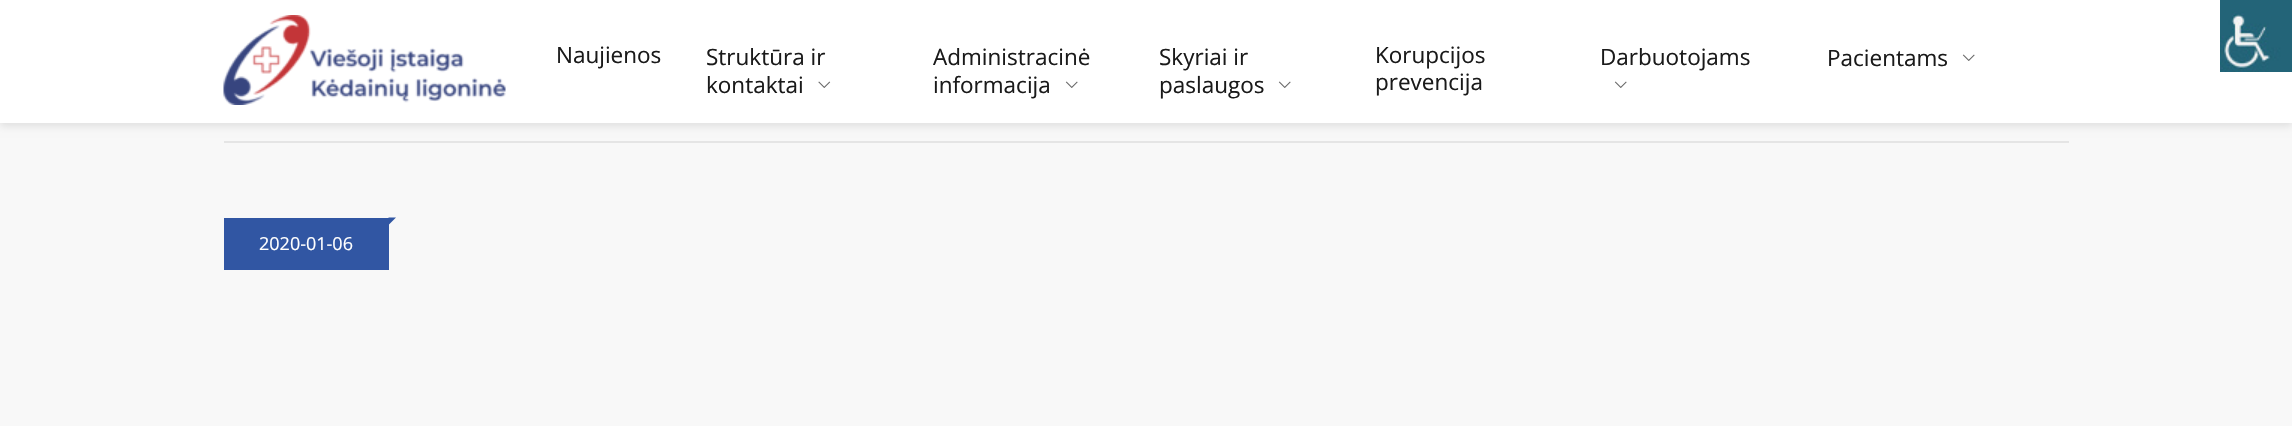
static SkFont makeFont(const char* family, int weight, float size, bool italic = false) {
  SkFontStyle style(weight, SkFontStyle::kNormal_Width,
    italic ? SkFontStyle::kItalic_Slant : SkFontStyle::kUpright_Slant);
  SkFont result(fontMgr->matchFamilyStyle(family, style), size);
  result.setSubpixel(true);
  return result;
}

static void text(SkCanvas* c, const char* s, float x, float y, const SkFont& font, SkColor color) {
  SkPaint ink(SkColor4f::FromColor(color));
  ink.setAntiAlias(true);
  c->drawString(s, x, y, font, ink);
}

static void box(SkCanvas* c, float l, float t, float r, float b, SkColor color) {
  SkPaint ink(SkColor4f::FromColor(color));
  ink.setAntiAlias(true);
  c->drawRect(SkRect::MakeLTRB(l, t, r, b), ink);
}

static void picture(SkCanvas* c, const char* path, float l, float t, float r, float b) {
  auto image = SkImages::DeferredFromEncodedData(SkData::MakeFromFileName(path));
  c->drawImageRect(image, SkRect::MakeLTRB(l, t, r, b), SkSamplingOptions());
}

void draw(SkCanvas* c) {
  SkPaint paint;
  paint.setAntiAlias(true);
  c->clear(0xfff8f8f8);
  paint.setColor(0x1a000000);
  paint.setMaskFilter(SkMaskFilter::MakeBlur(kNormal_SkBlurStyle, 4));
  c->drawRect(SkRect::MakeLTRB(0, 3, 2292, 126), paint);
  paint.setMaskFilter(nullptr);
  box(c, 0, 0, 2292, 123, 0xffffffff);
  picture(c, "img_01.png", 2220, 0, 2292, 72);
  picture(c, "img_02.png", 223, 15, 506, 105);
  SkFont face1 = makeFont("Open Sans", 400, 22.5f);
  text(c, "Naujienos", 556, 63, face1, 0xff1a1a1a);
  text(c, "Struktūra ir", 706, 65, face1, 0xff1a1a1a);
  text(c, "kontaktai", 706, 93, face1, 0xff1a1a1a);
  picture(c, "img_03.png", 818, 81, 831, 88);
  text(c, "Administracinė", 933, 65, face1, 0xff1a1a1a);
  text(c, "informacija", 933, 93, face1, 0xff1a1a1a);
  picture(c, "img_04.png", 1065, 81, 1078, 88);
  text(c, "Skyriai ir", 1159, 65, face1, 0xff1a1a1a);
  text(c, "paslaugos", 1159, 93, face1, 0xff1a1a1a);
  picture(c, "img_04.png", 1278, 81, 1291, 88);
  text(c, "Korupcijos", 1375, 63, face1, 0xff1a1a1a);
  text(c, "prevencija", 1375, 90, face1, 0xff1a1a1a);
  text(c, "Darbuotojams", 1600, 65, face1, 0xff1a1a1a);
  picture(c, "img_04.png", 1614, 81, 1627, 88);
  text(c, "Pacientams", 1827, 66, face1, 0xff1a1a1a);
  picture(c, "img_04.png", 1962, 54, 1975, 61);
  box(c, 224, 141, 2069, 143, 0xffe5e5e5);
  box(c, 224, 218, 389, 270, 0xff3156a3);
  paint.setColor(0xff3156a3);
  c->drawPath(SkPathBuilder().moveTo(388.5f, 217.5f).lineTo(396, 217.5f).lineTo(388.5f, 225).close().detach(), paint);
  SkFont face2 = makeFont("Open Sans", 400, 18);
  text(c, "2020-01-06", 259, 250, face2, 0xffffffff);
}
